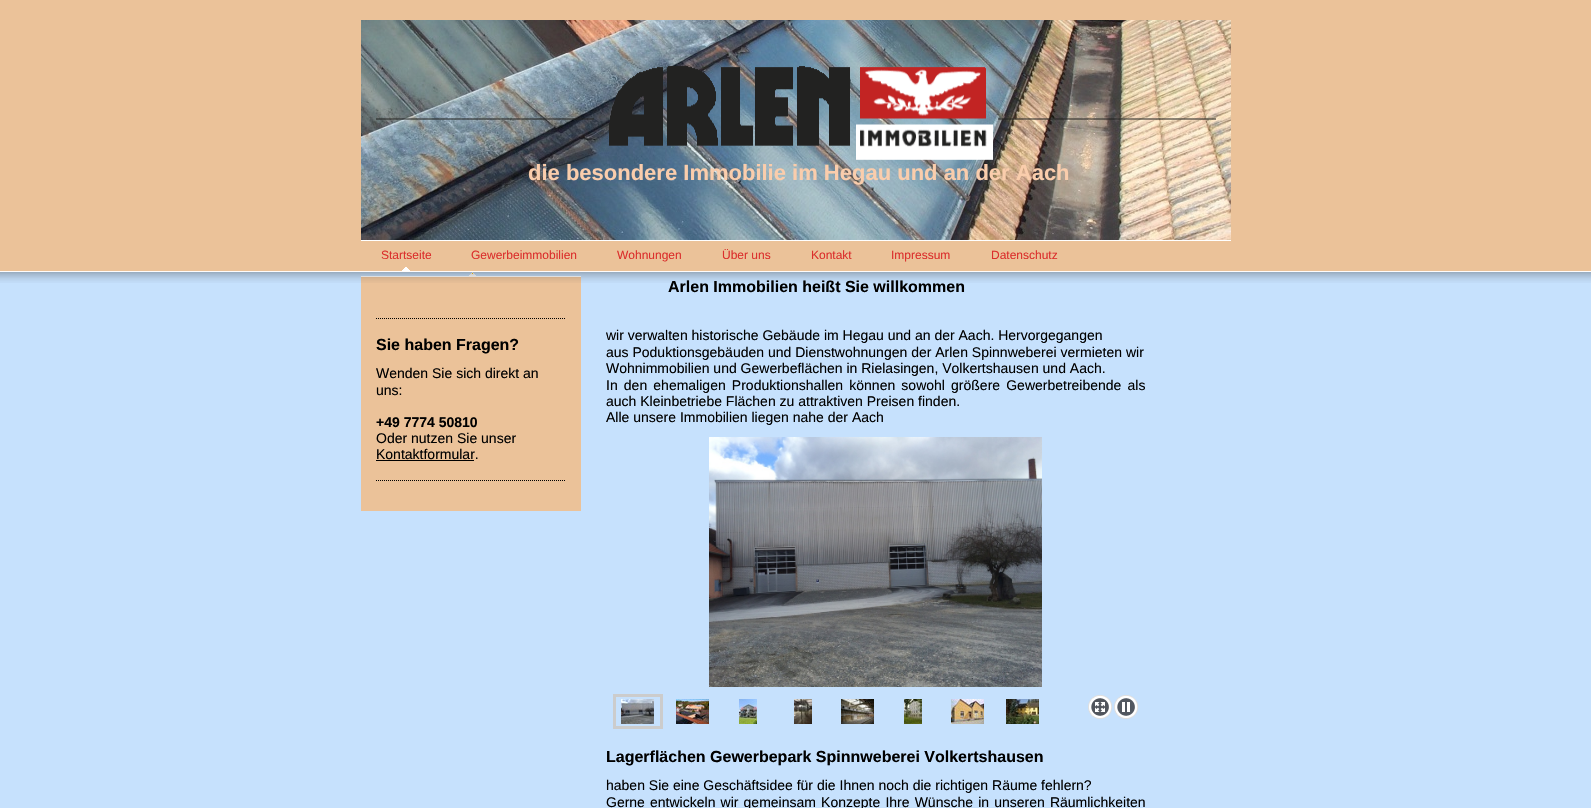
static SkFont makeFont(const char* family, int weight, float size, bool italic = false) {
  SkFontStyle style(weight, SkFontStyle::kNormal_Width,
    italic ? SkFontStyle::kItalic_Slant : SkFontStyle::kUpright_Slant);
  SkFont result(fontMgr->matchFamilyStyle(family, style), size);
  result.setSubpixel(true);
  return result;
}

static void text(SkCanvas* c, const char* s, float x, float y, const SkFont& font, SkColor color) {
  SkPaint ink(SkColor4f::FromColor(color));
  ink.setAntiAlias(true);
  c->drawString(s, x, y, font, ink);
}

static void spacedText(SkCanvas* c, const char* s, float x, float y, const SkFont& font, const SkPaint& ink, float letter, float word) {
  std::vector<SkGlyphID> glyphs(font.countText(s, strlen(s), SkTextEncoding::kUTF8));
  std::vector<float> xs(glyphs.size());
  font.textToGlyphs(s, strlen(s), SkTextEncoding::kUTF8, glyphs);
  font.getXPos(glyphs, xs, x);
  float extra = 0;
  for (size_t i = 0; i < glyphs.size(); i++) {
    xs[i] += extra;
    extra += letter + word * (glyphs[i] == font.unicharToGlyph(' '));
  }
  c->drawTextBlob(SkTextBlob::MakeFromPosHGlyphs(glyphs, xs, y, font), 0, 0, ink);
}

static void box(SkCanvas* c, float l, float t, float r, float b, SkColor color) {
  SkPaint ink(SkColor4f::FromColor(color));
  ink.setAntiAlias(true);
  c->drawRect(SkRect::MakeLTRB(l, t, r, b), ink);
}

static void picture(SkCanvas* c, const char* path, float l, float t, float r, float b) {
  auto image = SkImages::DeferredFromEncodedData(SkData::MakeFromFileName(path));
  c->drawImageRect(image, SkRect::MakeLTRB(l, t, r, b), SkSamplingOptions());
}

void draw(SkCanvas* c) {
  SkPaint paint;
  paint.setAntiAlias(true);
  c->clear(0xffc6e1fd);
  box(c, 0, 0, 1591, 271, 0xffebc299);
  box(c, 361, 240, 1231, 241, 0xffffffff);
  picture(c, "img_01.png", 361, 20, 1231, 240);
  picture(c, "img_02.png", 376, 66, 1216, 160);
  SkFont face1 = makeFont("Liberation Sans", 700, 22);
  text(c, "die besondere Immobilie im Hegau und an der Aach", 528, 180, face1, 0xfffacdac);
  picture(c, "img_03.png", 402, 267, 410, 271);
  SkFont face2 = makeFont("Liberation Sans", 400, 12);
  text(c, "Startseite", 381, 259, face2, 0xffdb2f2c);
  text(c, "Gewerbeimmobilien", 471, 259, face2, 0xffdb2f2c);
  text(c, "Wohnungen", 617, 259, face2, 0xffdb2f2c);
  text(c, "Über uns", 722, 259, face2, 0xffdb2f2c);
  text(c, "Kontakt", 811, 259, face2, 0xffdb2f2c);
  text(c, "Impressum", 891, 259, face2, 0xffdb2f2c);
  text(c, "Datenschutz", 991, 259, face2, 0xffdb2f2c);
  picture(c, "img_05.png", 361, 272, 581, 277);
  box(c, 361, 277, 581, 511, 0xffebc299);
  SkFont face3 = makeFont("Liberation Sans", 700, 16);
  text(c, "Arlen Immobilien heißt Sie willkommen", 668, 292, face3, 0xff000000);
  picture(c, "img_04.png", 0, 271, 1591, 283);
  paint.setStyle(SkPaint::kStroke_Style);
  paint.setStrokeWidth(1);
  paint.setColor(0xff000000);
  paint.setPathEffect(SkDashPathEffect::Make({{1, 1}}, 0));
  c->drawPath(SkPathBuilder().moveTo(376, 318.5f).lineTo(566, 318.5f).detach(), paint);
  paint.setPathEffect(nullptr);
  text(c, "Sie haben Fragen?", 376, 350, face3, 0xff000000);
  SkFont face4 = makeFont("Liberation Sans", 400, 14);
  text(c, "Wenden Sie sich direkt an", 376, 378, face4, 0xff000000);
  text(c, "uns:", 376, 395, face4, 0xff000000);
  SkFont face5 = makeFont("Liberation Sans", 700, 14);
  text(c, "+49 7774 50810", 376, 427, face5, 0xff000000);
  text(c, "Oder nutzen Sie unser", 376, 443, face4, 0xff000000);
  text(c, "Kontaktformular.", 376, 459, face4, 0xff000000);
  box(c, 376, 460, 474, 461, 0xff000000);
  paint.setPathEffect(SkDashPathEffect::Make({{1, 1}}, 0));
  c->drawPath(SkPathBuilder().moveTo(376, 480.5f).lineTo(566, 480.5f).detach(), paint);
  paint.setPathEffect(nullptr);
  text(c, "wir verwalten historische Gebäude im Hegau und an der Aach. Hervorgegangen", 606, 340, face4, 0xff000000);
  text(c, "aus Poduktionsgebäuden und Dienstwohnungen der Arlen Spinnweberei vermieten wir", 606, 357, face4, 0xff000000);
  text(c, "Wohnimmobilien und Gewerbeflächen in Rielasingen, Volkertshausen und Aach.", 606, 373, face4, 0xff000000);
  paint.setStyle(SkPaint::kFill_Style);
  spacedText(c, "In den ehemaligen Produktionshallen können sowohl größere Gewerbetreibende als", 606, 390, face4, paint, 0, 2.25f);
  text(c, "auch Kleinbetriebe Flächen zu attraktiven Preisen finden.", 606, 406, face4, 0xff000000);
  text(c, "Alle unsere Immobilien liegen nahe der Aach", 606, 422, face4, 0xff000000);
  picture(c, "img_06.png", 709, 437, 1042, 687);
  paint.setStyle(SkPaint::kStroke_Style);
  paint.setStrokeWidth(3);
  paint.setColor(0xffcccccc);
  c->drawRect(SkRect::MakeLTRB(614.5f, 695.5f, 661.5f, 727.5f), paint);
  picture(c, "img_07.png", 621, 699, 654, 724);
  picture(c, "img_08.png", 676, 699, 709, 724);
  picture(c, "img_09.png", 739, 699, 757, 724);
  picture(c, "img_10.png", 794, 699, 812, 724);
  picture(c, "img_11.png", 841, 699, 874, 724);
  picture(c, "img_12.png", 904, 699, 922, 724);
  picture(c, "img_13.png", 951, 699, 984, 724);
  picture(c, "img_14.png", 1006, 699, 1039, 724);
  picture(c, "img_15.png", 1088, 695, 1113, 719);
  picture(c, "img_16.png", 1114, 695, 1139, 719);
  text(c, "Lagerflächen Gewerbepark Spinnweberei Volkertshausen", 606, 762, face3, 0xff000000);
  text(c, "haben Sie eine Geschäftsidee für die Ihnen noch die richtigen Räume fehlern?", 606, 790, face4, 0xff000000);
  paint.setStyle(SkPaint::kFill_Style);
  paint.setColor(0xff000000);
  spacedText(c, "Gerne entwickeln wir gemeinsam Konzepte Ihre Wünsche in unseren Räumlichkeiten", 606, 807, face4, paint, 0, 1.25f);
}
